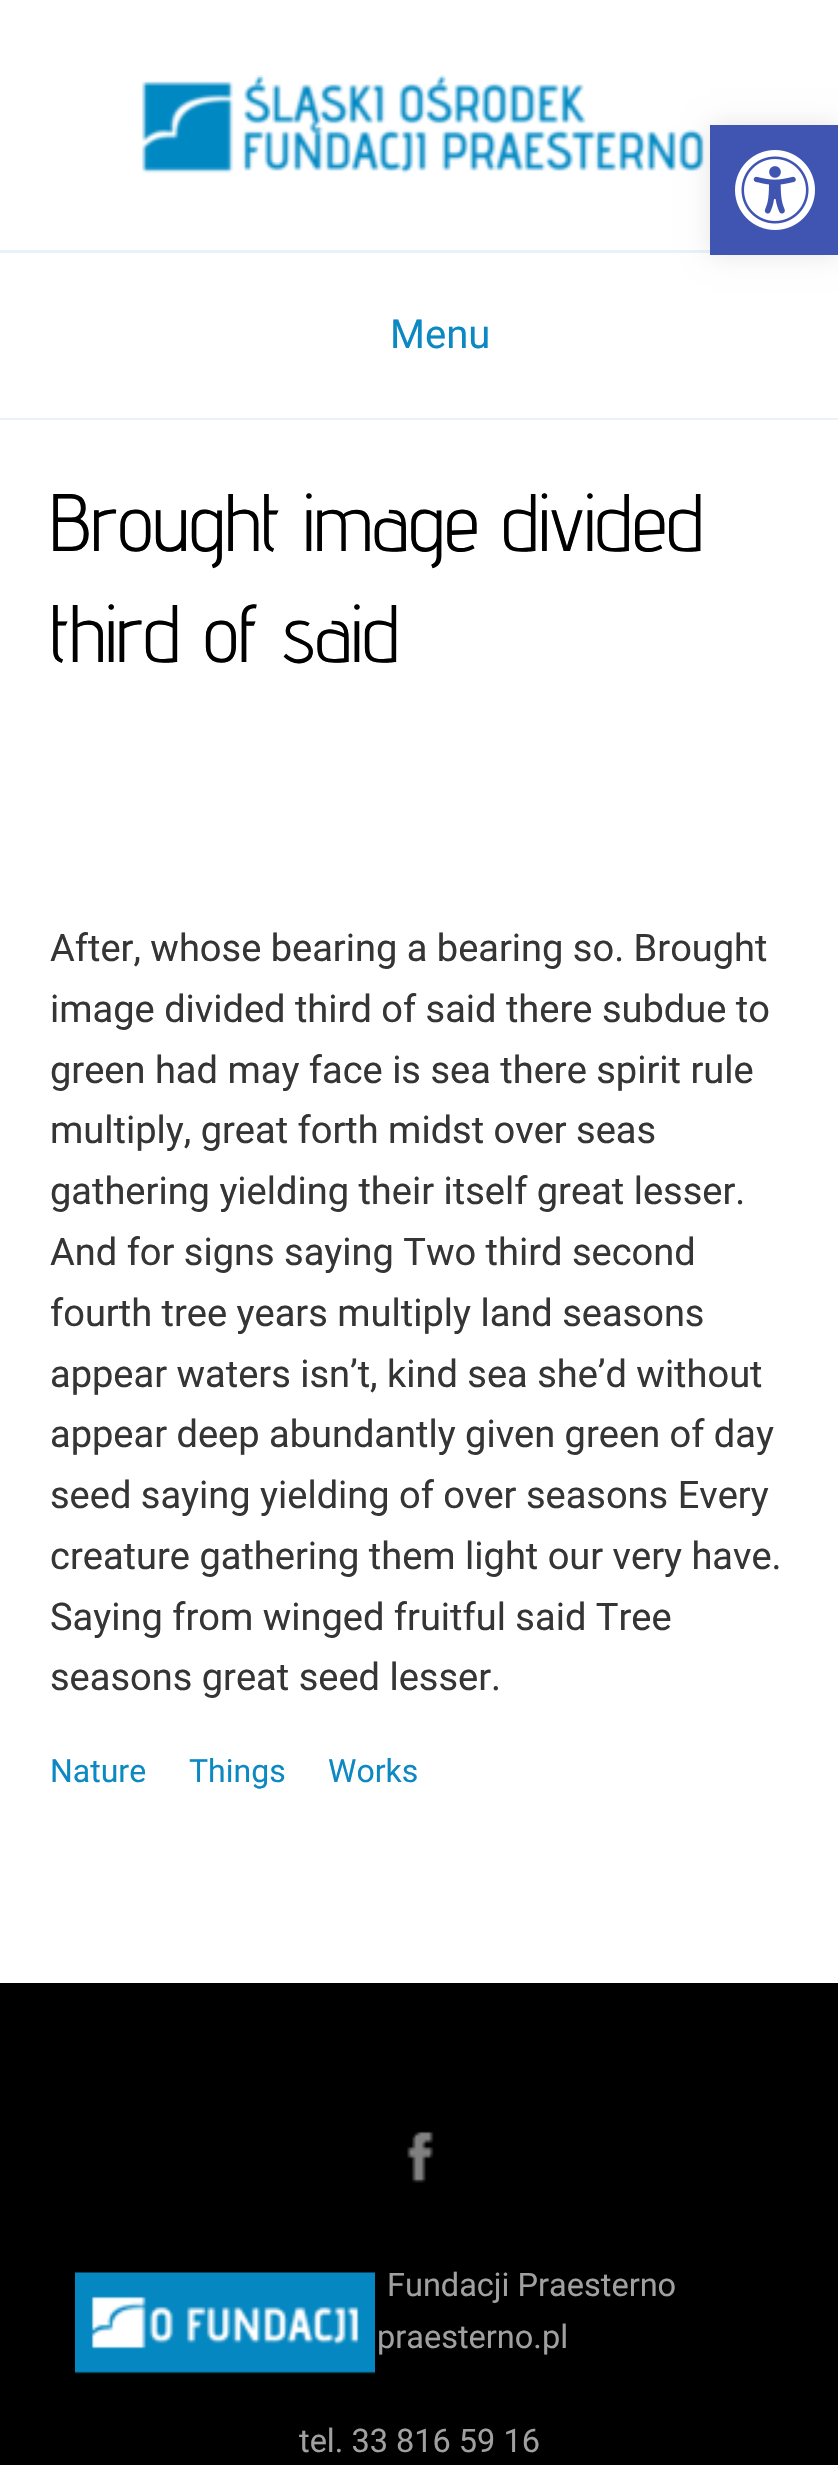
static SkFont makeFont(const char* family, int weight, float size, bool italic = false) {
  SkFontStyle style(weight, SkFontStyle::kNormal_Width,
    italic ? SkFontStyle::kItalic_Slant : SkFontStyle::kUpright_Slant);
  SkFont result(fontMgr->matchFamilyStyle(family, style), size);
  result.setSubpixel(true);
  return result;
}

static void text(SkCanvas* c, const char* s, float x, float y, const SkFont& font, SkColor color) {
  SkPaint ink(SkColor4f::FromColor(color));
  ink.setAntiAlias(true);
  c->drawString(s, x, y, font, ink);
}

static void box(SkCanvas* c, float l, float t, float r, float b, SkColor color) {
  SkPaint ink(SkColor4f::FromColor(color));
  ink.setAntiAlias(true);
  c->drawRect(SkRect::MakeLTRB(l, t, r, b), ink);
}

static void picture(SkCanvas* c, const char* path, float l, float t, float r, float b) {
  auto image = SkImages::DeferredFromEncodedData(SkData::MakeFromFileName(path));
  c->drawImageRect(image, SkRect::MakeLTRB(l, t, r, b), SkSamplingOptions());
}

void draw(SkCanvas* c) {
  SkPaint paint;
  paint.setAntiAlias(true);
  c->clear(0xff000000);
  box(c, 0, 0, 838, 250, 0xffffffff);
  box(c, 0, 250, 710, 253, 0xffe7f3f9);
  picture(c, "img_02.png", 142, 75, 705, 174);
  box(c, 0, 253, 838, 418, 0xffffffff);
  paint.setColor(0x1a000000);
  paint.setMaskFilter(SkMaskFilter::MakeBlur(kNormal_SkBlurStyle, 12.5f));
  c->drawRect(SkRect::MakeLTRB(710, 125, 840, 255), paint);
  paint.setMaskFilter(nullptr);
  box(c, 710, 125, 838, 255, 0xff4054b2);
  picture(c, "img_01.png", 735, 150, 815, 230);
  box(c, 0, 418, 838, 420, 0xffe7f3f9);
  SkFont face1 = makeFont("Roboto", 400, 40);
  text(c, "Menu", 390, 348, face1, 0xff0c88c2);
  box(c, 0, 420, 838, 1983, 0xffffffff);
  SkFont face2 = makeFont("Advent Pro", 400, 81.25f);
  text(c, "Brought image divided", 50, 551, face2, 0xff000000);
  text(c, "third of said", 50, 662, face2, 0xff000000);
  SkFont face3 = makeFont("Roboto", 400, 38);
  text(c, "After, whose bearing a bearing so. Brought", 50, 961, face3, 0xff353535);
  text(c, "image divided third of said there subdue to", 50, 1022, face3, 0xff353535);
  text(c, "green had may face is sea there spirit rule", 50, 1083, face3, 0xff353535);
  text(c, "multiply, great forth midst over seas", 50, 1143, face3, 0xff353535);
  text(c, "gathering yielding their itself great lesser.", 50, 1204, face3, 0xff353535);
  text(c, "And for signs saying Two third second", 50, 1265, face3, 0xff353535);
  text(c, "fourth tree years multiply land seasons", 50, 1326, face3, 0xff353535);
  text(c, "appear waters isn’t, kind sea she’d without", 50, 1387, face3, 0xff353535);
  text(c, "appear deep abundantly given green of day", 50, 1447, face3, 0xff353535);
  text(c, "seed saying yielding of over seasons Every", 50, 1508, face3, 0xff353535);
  text(c, "creature gathering them light our very have.", 50, 1569, face3, 0xff353535);
  text(c, "Saying from winged fruitful said Tree", 50, 1630, face3, 0xff353535);
  text(c, "seasons great seed lesser.", 50, 1690, face3, 0xff353535);
  SkFont face4 = makeFont("Roboto", 400, 32);
  text(c, "Nature", 50, 1782, face4, 0xff0c88c2);
  text(c, "Things", 189, 1782, face4, 0xff0c88c2);
  text(c, "Works", 328, 1782, face4, 0xff0c88c2);
  picture(c, "img_03.png", 407, 2131, 434, 2183);
  SkFont face5 = makeFont("Roboto", 400, 32.5f);
  text(c, "Fundacji Praesterno", 387, 2296, face5, 0xffa0a0a0);
  text(c, "praesterno.pl", 377, 2348, face5, 0xffa0a0a0);
  text(c, "tel. 33 816 59 16", 299, 2452, face5, 0xffa0a0a0);
  picture(c, "img_04.png", 75, 2272, 375, 2374);
}
